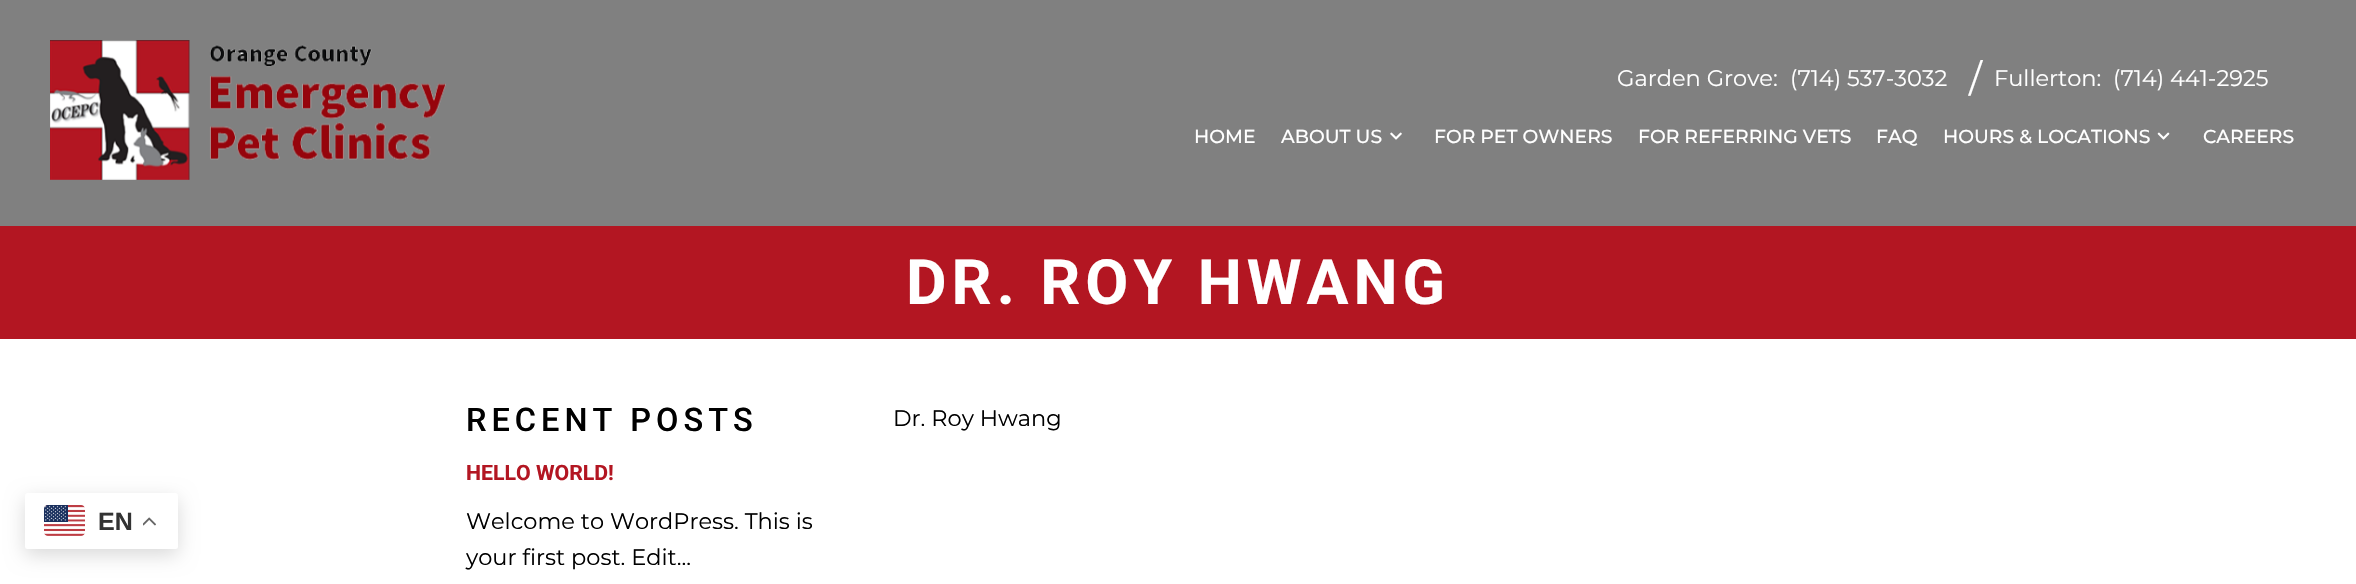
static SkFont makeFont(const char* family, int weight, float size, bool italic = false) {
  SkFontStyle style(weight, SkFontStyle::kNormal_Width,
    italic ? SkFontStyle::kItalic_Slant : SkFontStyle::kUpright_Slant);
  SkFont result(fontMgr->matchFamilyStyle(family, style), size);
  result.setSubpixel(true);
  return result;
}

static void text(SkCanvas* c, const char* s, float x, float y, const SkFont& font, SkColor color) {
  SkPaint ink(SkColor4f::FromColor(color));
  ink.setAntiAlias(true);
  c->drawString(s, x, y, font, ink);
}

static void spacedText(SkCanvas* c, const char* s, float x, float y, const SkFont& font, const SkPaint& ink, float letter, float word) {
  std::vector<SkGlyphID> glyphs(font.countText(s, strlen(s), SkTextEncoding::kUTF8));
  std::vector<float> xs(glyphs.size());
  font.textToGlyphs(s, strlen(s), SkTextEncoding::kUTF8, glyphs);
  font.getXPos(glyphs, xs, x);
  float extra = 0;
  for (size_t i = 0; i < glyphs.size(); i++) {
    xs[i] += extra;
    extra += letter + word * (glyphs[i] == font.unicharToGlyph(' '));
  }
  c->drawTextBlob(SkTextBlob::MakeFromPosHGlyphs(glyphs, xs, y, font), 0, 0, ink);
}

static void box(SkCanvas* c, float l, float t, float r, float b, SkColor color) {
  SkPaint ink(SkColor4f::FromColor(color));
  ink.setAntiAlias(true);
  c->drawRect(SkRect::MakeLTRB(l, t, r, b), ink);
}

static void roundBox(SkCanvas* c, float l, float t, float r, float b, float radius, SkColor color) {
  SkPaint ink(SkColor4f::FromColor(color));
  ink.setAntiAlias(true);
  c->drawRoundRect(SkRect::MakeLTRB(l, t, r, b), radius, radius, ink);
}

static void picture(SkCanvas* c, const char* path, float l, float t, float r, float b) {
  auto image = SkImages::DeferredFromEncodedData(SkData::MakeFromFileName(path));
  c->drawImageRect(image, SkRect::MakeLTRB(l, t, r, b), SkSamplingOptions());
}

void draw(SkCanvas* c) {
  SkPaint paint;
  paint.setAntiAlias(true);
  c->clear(0xffffffff);
  box(c, 0, 0, 2356, 226, 0xff808080);
  picture(c, "img_01.png", 50, 40, 446, 180);
  SkFont face1 = makeFont("Montserrat", 400, 22.5f);
  text(c, "Garden Grove:", 1617, 86, face1, 0xffffffff);
  text(c, "(714) 537-3032", 1790, 86, face1, 0xffffffff);
  SkFont face2 = makeFont("Montserrat", 400, 38);
  text(c, "/", 1969, 92, face2, 0xffffffff);
  text(c, "Fullerton:", 1994, 86, face1, 0xffffffff);
  text(c, "(714) 441-2925", 2113, 86, face1, 0xffffffff);
  SkFont face3 = makeFont("Montserrat", 500, 18.75f);
  text(c, "HOME", 1194, 143, face3, 0xffffffff);
  text(c, "ABOUT US", 1281, 143, face3, 0xffffffff);
  picture(c, "img_02.png", 1390, 132, 1402, 140);
  text(c, "FOR PET OWNERS", 1434, 143, face3, 0xffffffff);
  text(c, "FOR REFERRING VETS", 1638, 143, face3, 0xffffffff);
  text(c, "FAQ", 1876, 143, face3, 0xffffffff);
  text(c, "HOURS & LOCATIONS", 1943, 143, face3, 0xffffffff);
  picture(c, "img_03.png", 2157, 132, 2170, 140);
  text(c, "CAREERS", 2203, 143, face3, 0xffffffff);
  paint.setColor(0x26000000);
  paint.setMaskFilter(SkMaskFilter::MakeBlur(kNormal_SkBlurStyle, 9.5f));
  c->drawRoundRect(SkRect::MakeLTRB(25, 499, 178, 555), 2.5f, 2.5f, paint);
  paint.setMaskFilter(nullptr);
  roundBox(c, 25, 493, 178, 549, 2.5f, 0xffffffff);
  picture(c, "img_04.png", 44, 505, 85, 536);
  SkFont face4 = makeFont("Liberation Sans", 700, 25);
  text(c, "EN", 98, 530, face4, 0xff333333);
  picture(c, "img_05.png", 143, 517, 156, 526);
  box(c, 0, 226, 2356, 339, 0xffb31622);
  SkFont face5 = makeFont("Roboto", 700, 62.5f);
  paint.setColor(0xffffffff);
  spacedText(c, "DR. ROY HWANG", 906, 304, face5, paint, 5, 0);
  SkFont face6 = makeFont("Roboto", 500, 32.5f);
  paint.setColor(0xff000000);
  spacedText(c, "RECENT POSTS", 466, 431, face6, paint, 5, 0);
  SkFont face7 = makeFont("Roboto", 700, 21.25f);
  text(c, "HELLO WORLD!", 466, 480, face7, 0xffb31622);
  text(c, "Welcome to WordPress. This is", 466, 529, face1, 0xff000000);
  text(c, "your first post. Edit...", 466, 565, face1, 0xff000000);
  text(c, "Dr. Roy Hwang", 893, 426, face1, 0xff000000);
}
